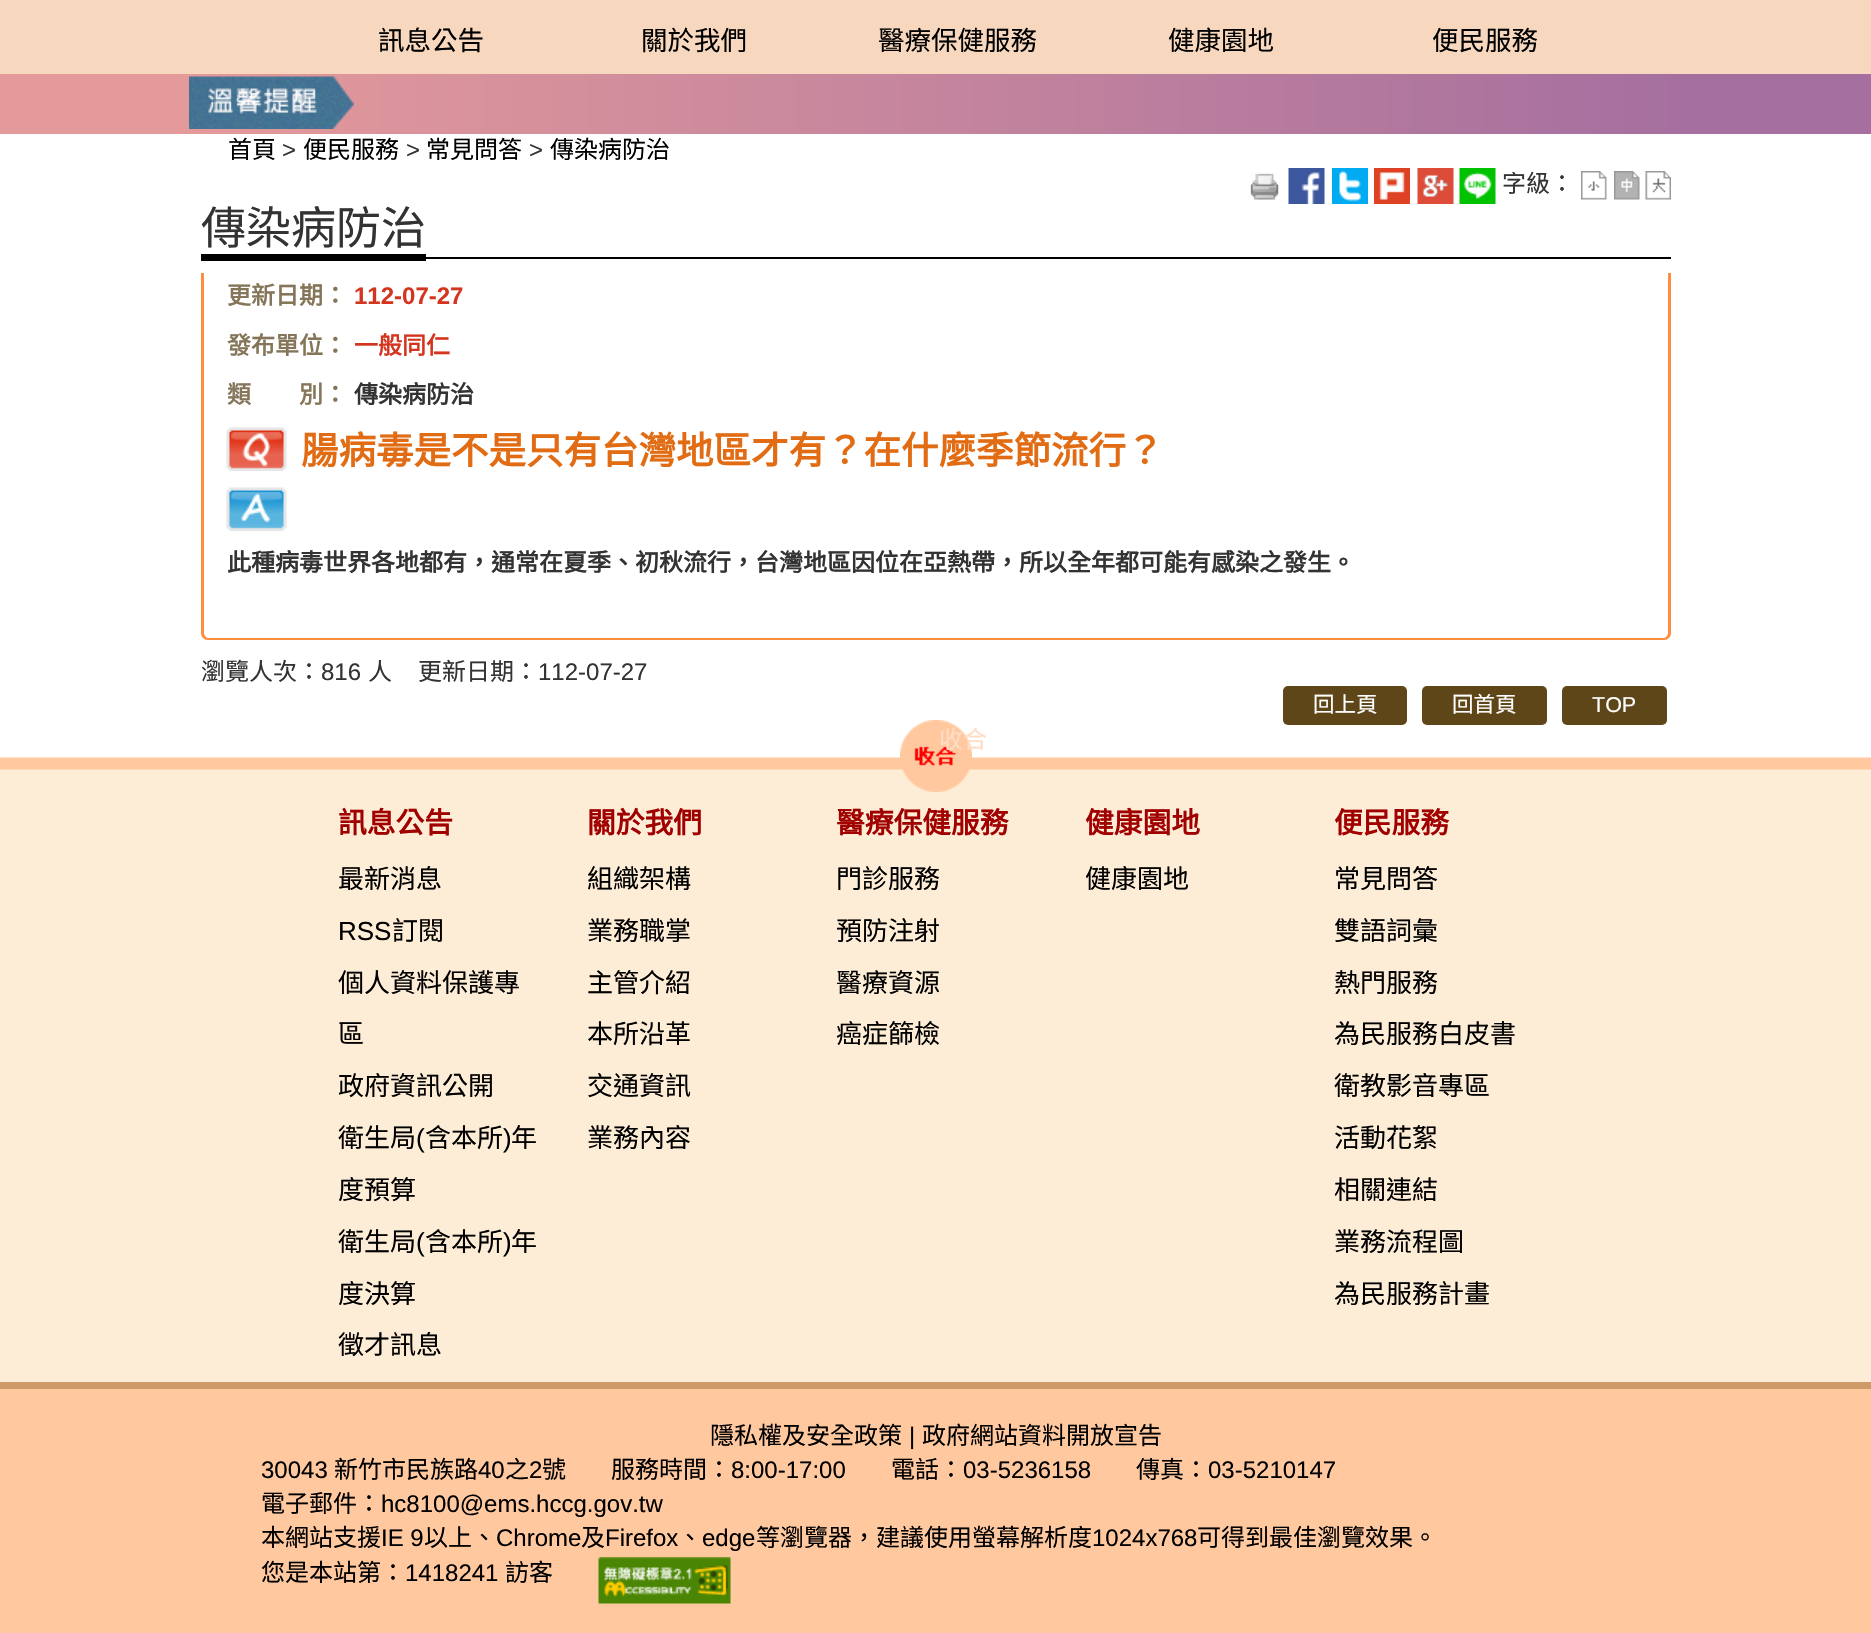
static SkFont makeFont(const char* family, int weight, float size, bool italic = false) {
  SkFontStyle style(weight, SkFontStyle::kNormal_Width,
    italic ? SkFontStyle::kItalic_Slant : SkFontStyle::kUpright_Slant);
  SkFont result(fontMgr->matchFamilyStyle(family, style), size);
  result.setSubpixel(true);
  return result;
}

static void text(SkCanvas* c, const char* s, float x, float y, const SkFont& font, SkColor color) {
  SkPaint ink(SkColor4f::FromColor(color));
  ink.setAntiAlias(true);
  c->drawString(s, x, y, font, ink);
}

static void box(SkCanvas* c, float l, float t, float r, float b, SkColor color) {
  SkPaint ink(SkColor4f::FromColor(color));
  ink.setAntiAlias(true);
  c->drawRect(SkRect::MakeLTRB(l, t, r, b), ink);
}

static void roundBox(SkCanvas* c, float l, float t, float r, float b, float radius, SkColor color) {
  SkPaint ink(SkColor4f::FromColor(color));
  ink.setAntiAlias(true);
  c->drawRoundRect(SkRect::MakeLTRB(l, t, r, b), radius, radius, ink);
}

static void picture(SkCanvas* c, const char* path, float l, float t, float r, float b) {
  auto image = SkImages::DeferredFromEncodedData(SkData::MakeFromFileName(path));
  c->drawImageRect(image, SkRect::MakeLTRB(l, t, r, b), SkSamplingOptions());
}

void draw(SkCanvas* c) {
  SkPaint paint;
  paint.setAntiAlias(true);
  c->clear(0xffffffff);
  box(c, 0, 0, 1871, 74, 0xfff7d8be);
  SkFont face1 = makeFont("Noto Sans CJK TC", 400, 26.5f);
  text(c, "訊息公告", 378, 50, face1, 0xff000000);
  text(c, "關於我們", 641, 50, face1, 0xff000000);
  text(c, "醫療保健服務", 878, 50, face1, 0xff000000);
  text(c, "健康園地", 1168, 50, face1, 0xff000000);
  text(c, "便民服務", 1432, 50, face1, 0xff000000);
  {
    const SkColor colors[] = {0xffe49a9b, 0xffa56f9f};
    const float stops[] = {0.1f, 0.9f};
    const SkPoint ends[] = {{0, 104}, {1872, 103}};
    paint.setShader(SkGradientShader::MakeLinear(ends, colors, stops, 2, SkTileMode::kClamp));
    paint.setAlpha(255);
  }
  c->drawRect(SkRect::MakeLTRB(0, 74, 1871, 134), paint);
  picture(c, "img_01.png", 189, 76, 354, 129);
  SkFont face2 = makeFont("Noto Sans CJK TC", 400, 24);
  text(c, "首頁", 228, 158, face2, 0xff000000);
  SkFont face3 = makeFont("Liberation Sans", 400, 24);
  text(c, ">", 282, 158, face3, 0xff333333);
  text(c, "便民服務", 303, 158, face2, 0xff000000);
  text(c, ">", 406, 158, face3, 0xff333333);
  text(c, "常見問答", 426, 158, face2, 0xff000000);
  text(c, ">", 529, 158, face3, 0xff333333);
  text(c, "傳染病防治", 550, 158, face2, 0xff000000);
  picture(c, "img_02.png", 1250, 173, 1279, 200);
  picture(c, "img_03.png", 1288, 168, 1325, 204);
  picture(c, "img_04.png", 1332, 168, 1368, 204);
  picture(c, "img_05.png", 1374, 168, 1410, 204);
  picture(c, "img_06.png", 1417, 168, 1454, 204);
  picture(c, "img_07.png", 1459, 168, 1496, 204);
  text(c, "字級：", 1502, 192, face2, 0xff333333);
  picture(c, "img_08.png", 1581, 171, 1607, 200);
  picture(c, "img_09.png", 1614, 171, 1640, 200);
  picture(c, "img_10.png", 1645, 171, 1671, 200);
  box(c, 426, 257, 1671, 259, 0xff000000);
  SkFont face4 = makeFont("Noto Sans CJK TC", 400, 45);
  text(c, "傳染病防治", 201, 244, face4, 0xff333333);
  box(c, 201, 254, 426, 261, 0xff000000);
  paint.setShader(nullptr);
  paint.setColor(0xfffe8d3d);
  c->drawPath(SkPathBuilder(SkPathFillType::kEvenOdd).moveTo(201, 273).lineTo(1671, 273).lineTo(1671, 633).cubicTo(1671, 637, 1668, 640, 1664, 640).lineTo(208, 640).cubicTo(204, 640, 201, 637, 201, 633).close().moveTo(204, 273).lineTo(1668, 273).lineTo(1668, 633).cubicTo(1668, 635, 1666, 638, 1664, 638).lineTo(208, 638).cubicTo(206, 638, 204, 635, 204, 633).close().detach(), paint);
  SkFont face5 = makeFont("Noto Sans CJK TC", 700, 24);
  text(c, "更新日期：", 227, 304, face5, 0xff85765a);
  SkFont face6 = makeFont("Liberation Sans", 700, 24);
  text(c, "112-07-27", 354, 304, face6, 0xffd4351f);
  text(c, "發布單位：", 227, 354, face5, 0xff85765a);
  text(c, "一般同仁", 354, 354, face5, 0xffd4351f);
  text(c, "類　　別：", 227, 403, face5, 0xff85765a);
  text(c, "傳染病防治", 354, 403, face5, 0xff333333);
  picture(c, "img_11.png", 226, 427, 287, 471);
  SkFont face7 = makeFont("Noto Sans CJK TC", 700, 37.5f);
  text(c, "腸病毒是不是只有台灣地區才有？在什麼季節流行？", 301, 464, face7, 0xffe16c13);
  picture(c, "img_12.png", 226, 487, 287, 531);
  text(c, "此種病毒世界各地都有，通常在夏季、初秋流行，台灣地區因位在亞熱帶，所以全年都可能有感染之發生。", 227, 571, face5, 0xff333333);
  text(c, "瀏覽人次：", 201, 680, face2, 0xff333333);
  text(c, "816", 321, 680, face3, 0xff333333);
  text(c, "人", 368, 680, face2, 0xff333333);
  text(c, "更新日期：", 418, 680, face2, 0xff333333);
  text(c, "112-07-27", 538, 680, face3, 0xff333333);
  picture(c, "img_13.png", 0, 720, 1871, 770);
  roundBox(c, 1283, 686, 1407, 725, 5, 0xff5e4618);
  SkFont face8 = makeFont("Noto Sans CJK TC", 400, 21.5f);
  text(c, "回上頁", 1313, 712, face8, 0xffffffff);
  roundBox(c, 1422, 686, 1547, 725, 5, 0xff5e4618);
  text(c, "回首頁", 1452, 712, face8, 0xffffffff);
  roundBox(c, 1562, 686, 1667, 725, 5, 0xff5e4618);
  SkFont face9 = makeFont("Liberation Sans", 400, 21.5f);
  text(c, "TOP", 1592, 712, face9, 0xffffffff);
  box(c, 0, 770, 1871, 1382, 0xfffeedd6);
  picture(c, "img_14.png", 900, 720, 972, 792);
  text(c, "收合", 939, 748, face2, 0xffffddc5);
  SkFont face10 = makeFont("Noto Sans CJK TC", 700, 28.75f);
  text(c, "訊息公告", 338, 833, face10, 0xffa10000);
  SkFont face11 = makeFont("Noto Sans CJK TC", 400, 26);
  text(c, "最新消息", 338, 888, face11, 0xff000000);
  SkFont face12 = makeFont("Liberation Sans", 400, 26);
  text(c, "RSS", 338, 940, face12, 0xff000000);
  text(c, "訂閱", 392, 940, face11, 0xff000000);
  text(c, "個人資料保護專", 338, 992, face11, 0xff000000);
  text(c, "區", 338, 1043, face11, 0xff000000);
  text(c, "政府資訊公開", 338, 1095, face11, 0xff000000);
  text(c, "衛生局", 338, 1147, face11, 0xff000000);
  text(c, "(", 416, 1147, face12, 0xff000000);
  text(c, "含本所", 425, 1147, face11, 0xff000000);
  text(c, ")", 503, 1147, face12, 0xff000000);
  text(c, "年", 511, 1147, face11, 0xff000000);
  text(c, "度預算", 338, 1199, face11, 0xff000000);
  text(c, "衛生局", 338, 1251, face11, 0xff000000);
  text(c, "(", 416, 1251, face12, 0xff000000);
  text(c, "含本所", 425, 1251, face11, 0xff000000);
  text(c, ")", 503, 1251, face12, 0xff000000);
  text(c, "年", 511, 1251, face11, 0xff000000);
  text(c, "度決算", 338, 1303, face11, 0xff000000);
  text(c, "徵才訊息", 338, 1354, face11, 0xff000000);
  text(c, "關於我們", 587, 833, face10, 0xffa10000);
  text(c, "組織架構", 587, 888, face11, 0xff000000);
  text(c, "業務職掌", 587, 940, face11, 0xff000000);
  text(c, "主管介紹", 587, 992, face11, 0xff000000);
  text(c, "本所沿革", 587, 1043, face11, 0xff000000);
  text(c, "交通資訊", 587, 1095, face11, 0xff000000);
  text(c, "業務內容", 587, 1147, face11, 0xff000000);
  text(c, "醫療保健服務", 836, 833, face10, 0xffa10000);
  text(c, "門診服務", 836, 888, face11, 0xff000000);
  text(c, "預防注射", 836, 940, face11, 0xff000000);
  text(c, "醫療資源", 836, 992, face11, 0xff000000);
  text(c, "癌症篩檢", 836, 1043, face11, 0xff000000);
  text(c, "健康園地", 1085, 833, face10, 0xffa10000);
  text(c, "健康園地", 1085, 888, face11, 0xff000000);
  text(c, "便民服務", 1334, 833, face10, 0xffa10000);
  text(c, "常見問答", 1334, 888, face11, 0xff000000);
  text(c, "雙語詞彙", 1334, 940, face11, 0xff000000);
  text(c, "熱門服務", 1334, 992, face11, 0xff000000);
  text(c, "為民服務白皮書", 1334, 1043, face11, 0xff000000);
  text(c, "衛教影音專區", 1334, 1095, face11, 0xff000000);
  text(c, "活動花絮", 1334, 1147, face11, 0xff000000);
  text(c, "相關連結", 1334, 1199, face11, 0xff000000);
  text(c, "業務流程圖", 1334, 1251, face11, 0xff000000);
  text(c, "為民服務計畫", 1334, 1303, face11, 0xff000000);
  box(c, 0, 1389, 1871, 1633, 0xffffc89f);
  box(c, 0, 1382, 1871, 1389, 0xffcd9a68);
  text(c, "隱私權及安全政策", 710, 1444, face2, 0xff000000);
  text(c, "|", 909, 1444, face3, 0xff000000);
  text(c, "政府網站資料開放宣告", 922, 1444, face2, 0xff000000);
  text(c, "30043", 261, 1478, face3, 0xff000000);
  text(c, "新竹市民族路", 334, 1478, face2, 0xff000000);
  text(c, "40", 478, 1478, face3, 0xff000000);
  text(c, "之", 505, 1478, face2, 0xff000000);
  text(c, "2", 529, 1478, face3, 0xff000000);
  text(c, "號", 542, 1478, face2, 0xff000000);
  text(c, "服務時間：", 611, 1478, face2, 0xff000000);
  text(c, "8:00-17:00", 731, 1478, face3, 0xff000000);
  text(c, "電話：", 891, 1478, face2, 0xff000000);
  text(c, "03-5236158", 963, 1478, face3, 0xff000000);
  text(c, "傳真：", 1136, 1478, face2, 0xff000000);
  text(c, "03-5210147", 1208, 1478, face3, 0xff000000);
  text(c, "電子郵件：", 261, 1512, face2, 0xff000000);
  text(c, "hc8100@ems.hccg.gov.tw", 381, 1512, face3, 0xff000000);
  text(c, "本網站支援", 261, 1546, face2, 0xff000000);
  text(c, "IE 9", 381, 1546, face3, 0xff000000);
  text(c, "以上、", 424, 1546, face2, 0xff000000);
  text(c, "Chrome", 496, 1546, face3, 0xff000000);
  text(c, "及", 581, 1546, face2, 0xff000000);
  text(c, "Firefox", 605, 1546, face3, 0xff000000);
  text(c, "、", 678, 1546, face2, 0xff000000);
  text(c, "edge", 702, 1546, face3, 0xff000000);
  text(c, "等瀏覽器，建議使用螢幕解析度", 756, 1546, face2, 0xff000000);
  text(c, "1024x768", 1092, 1546, face3, 0xff000000);
  text(c, "可得到最佳瀏覽效果。", 1197, 1546, face2, 0xff000000);
  text(c, "您是本站第：", 261, 1581, face2, 0xff000000);
  text(c, "1418241", 405, 1581, face3, 0xff000000);
  text(c, "訪客", 505, 1581, face2, 0xff000000);
  picture(c, "img_15.png", 598, 1557, 731, 1604);
}
